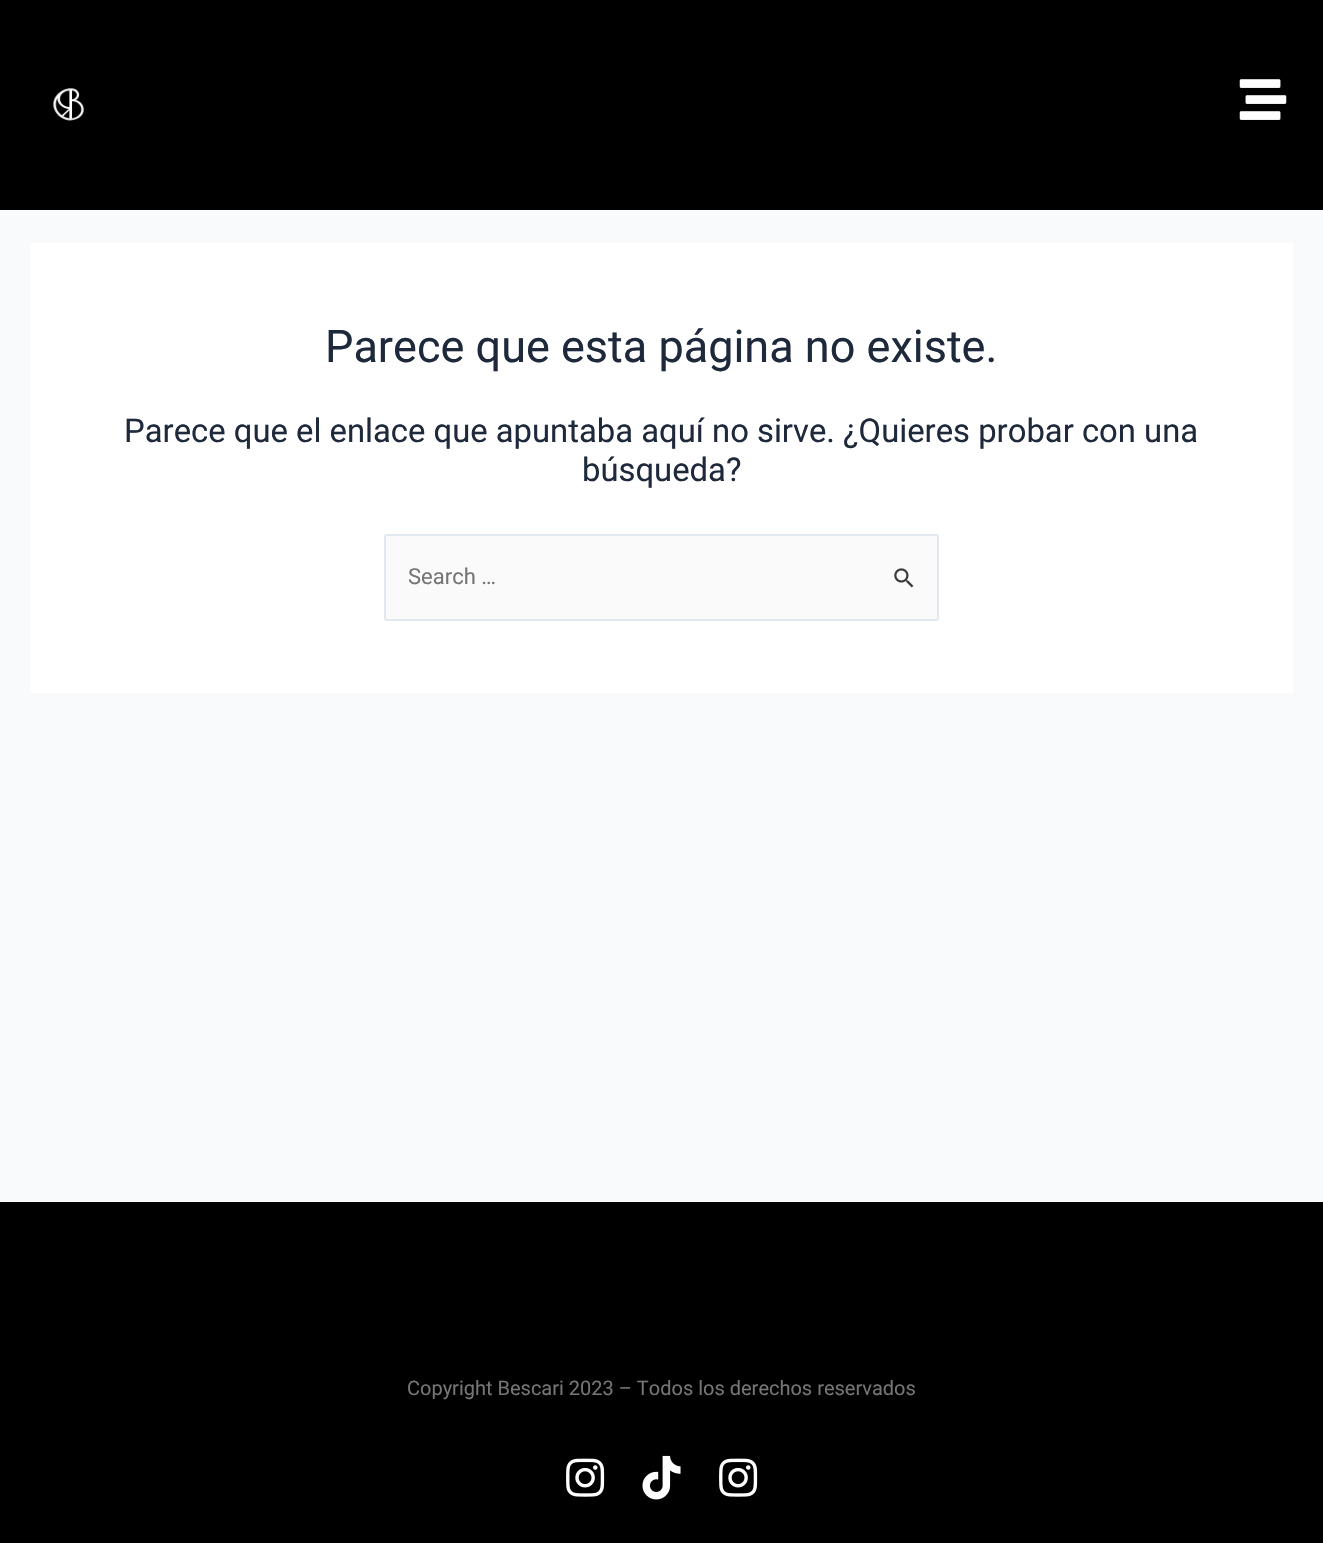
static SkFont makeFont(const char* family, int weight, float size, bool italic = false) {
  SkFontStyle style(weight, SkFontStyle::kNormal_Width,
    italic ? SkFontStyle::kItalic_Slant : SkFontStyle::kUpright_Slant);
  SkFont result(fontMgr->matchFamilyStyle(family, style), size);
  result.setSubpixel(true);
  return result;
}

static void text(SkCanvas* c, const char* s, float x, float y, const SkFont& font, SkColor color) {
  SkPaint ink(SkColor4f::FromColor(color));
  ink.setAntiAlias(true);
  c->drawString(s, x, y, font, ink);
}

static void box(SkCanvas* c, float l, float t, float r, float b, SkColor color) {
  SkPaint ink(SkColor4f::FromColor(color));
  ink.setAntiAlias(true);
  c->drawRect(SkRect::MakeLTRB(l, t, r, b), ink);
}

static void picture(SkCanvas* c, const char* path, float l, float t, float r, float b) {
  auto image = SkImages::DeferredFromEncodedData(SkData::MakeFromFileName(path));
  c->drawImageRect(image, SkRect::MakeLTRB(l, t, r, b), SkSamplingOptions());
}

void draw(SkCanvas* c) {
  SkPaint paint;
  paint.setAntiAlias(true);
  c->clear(0xfff9fafb);
  box(c, 0, 0, 1323, 210, 0xff000000);
  picture(c, "img_01.png", 53, 88, 84, 121);
  picture(c, "img_02.png", 1239, 79, 1287, 120);
  box(c, 30, 243, 1293, 693, 0xffffffff);
  SkFont face1 = makeFont("Roboto", 400, 45);
  text(c, "Parece que esta página no existe.", 325, 362, face1, 0xff1e293b);
  SkFont face2 = makeFont("Roboto", 400, 32.8f);
  text(c, "Parece que el enlace que apuntaba aquí no sirve. ¿Quieres probar con una", 124, 442, face2, 0xff1e293b);
  text(c, "búsqueda?", 582, 481, face2, 0xff1e293b);
  paint.setColor(0xfffafafa);
  c->drawRoundRect(SkRect::MakeLTRB(385, 535, 938, 620), 2, 2, paint);
  paint.setStyle(SkPaint::kStroke_Style);
  paint.setStrokeWidth(2);
  paint.setColor(0xffe2e8f0);
  c->drawRoundRect(SkRect::MakeLTRB(385, 535, 938, 620), 2, 2, paint);
  SkFont face3 = makeFont("Roboto", 400, 22);
  text(c, "Search …", 408, 584, face3, 0xff757575);
  picture(c, "img_03.png", 894, 568, 914, 588);
  box(c, 0, 1202, 1323, 1543, 0xff000000);
  SkFont face4 = makeFont("Roboto", 400, 20);
  text(c, "Copyright Bescari 2023 – Todos los derechos reservados", 407, 1395, face4, 0xff757575);
  picture(c, "img_04.png", 566, 1458, 605, 1497);
  picture(c, "img_05.png", 642, 1455, 681, 1500);
  picture(c, "img_04.png", 719, 1458, 758, 1497);
}
